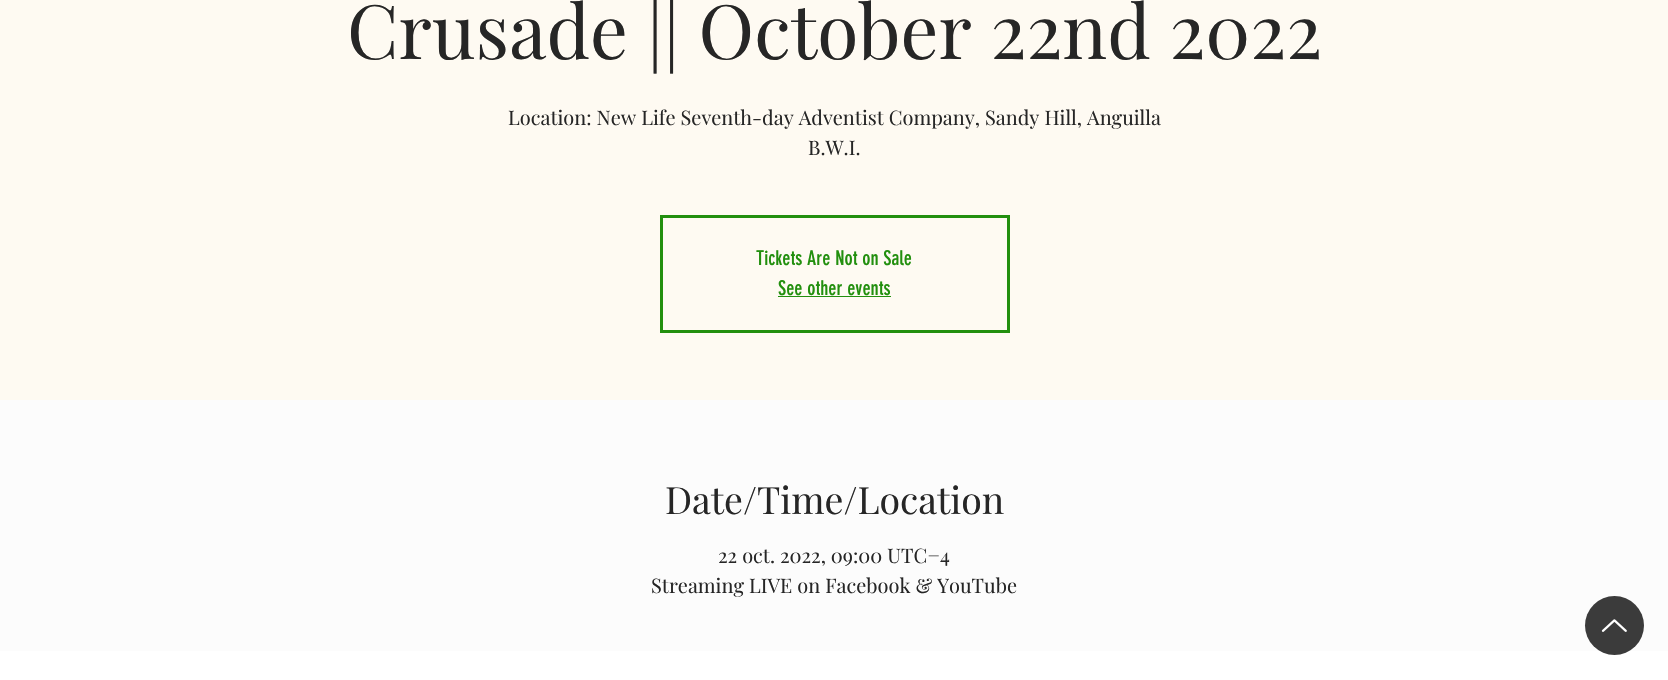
static SkFont makeFont(const char* family, int weight, float size, bool italic = false) {
  SkFontStyle style(weight, SkFontStyle::kNormal_Width,
    italic ? SkFontStyle::kItalic_Slant : SkFontStyle::kUpright_Slant);
  SkFont result(fontMgr->matchFamilyStyle(family, style), size);
  result.setSubpixel(true);
  return result;
}

static void text(SkCanvas* c, const char* s, float x, float y, const SkFont& font, SkColor color) {
  SkPaint ink(SkColor4f::FromColor(color));
  ink.setAntiAlias(true);
  c->drawString(s, x, y, font, ink);
}

static void box(SkCanvas* c, float l, float t, float r, float b, SkColor color) {
  SkPaint ink(SkColor4f::FromColor(color));
  ink.setAntiAlias(true);
  c->drawRect(SkRect::MakeLTRB(l, t, r, b), ink);
}

static void picture(SkCanvas* c, const char* path, float l, float t, float r, float b) {
  auto image = SkImages::DeferredFromEncodedData(SkData::MakeFromFileName(path));
  c->drawImageRect(image, SkRect::MakeLTRB(l, t, r, b), SkSamplingOptions());
}

void draw(SkCanvas* c) {
  SkPaint paint;
  paint.setAntiAlias(true);
  c->clear(0xfffcfcfc);
  box(c, 0, 0, 1668, 400, 0xfffefaf2);
  SkFont face1 = makeFont("Playfair Display", 400, 75);
  text(c, "Crusade || October 22nd 2022", 347, 59, face1, 0xff262626);
  SkFont face2 = makeFont("Playfair Display", 400, 20);
  text(c, "Location: New Life Seventh-day Adventist Company, Sandy Hill, Anguilla", 508, 125, face2, 0xff262626);
  text(c, "B.W.I.", 808, 155, face2, 0xff262626);
  paint.setStyle(SkPaint::kStroke_Style);
  paint.setStrokeWidth(3);
  paint.setColor(0xff228f0e);
  c->drawRect(SkRect::MakeLTRB(661.5f, 216.5f, 1008.5f, 331.5f), paint);
  SkFont face3 = makeFont("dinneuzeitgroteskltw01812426", 400, 20);
  text(c, "Tickets Are Not on Sale", 756, 265, face3, 0xff228f0e);
  text(c, "See other events", 778, 295, face3, 0xff228f0e);
  box(c, 778, 296, 891, 297, 0xff228f0e);
  SkFont face4 = makeFont("Playfair Display", 400, 37.5f);
  text(c, "Date/Time/Location", 665, 514, face4, 0xff262626);
  text(c, "22 oct. 2022, 09:00 UTC−4", 718, 563, face2, 0xff262626);
  text(c, "Streaming LIVE on Facebook & YouTube", 651, 593, face2, 0xff262626);
  box(c, 0, 651, 1668, 680, 0xffffffff);
  paint.setStyle(SkPaint::kFill_Style);
  paint.setColor(0xff3b3b3b);
  c->drawCircle(1614.5f, 625.5f, 29.5f, paint);
  picture(c, "img_01.png", 1601, 619, 1627, 632);
}
